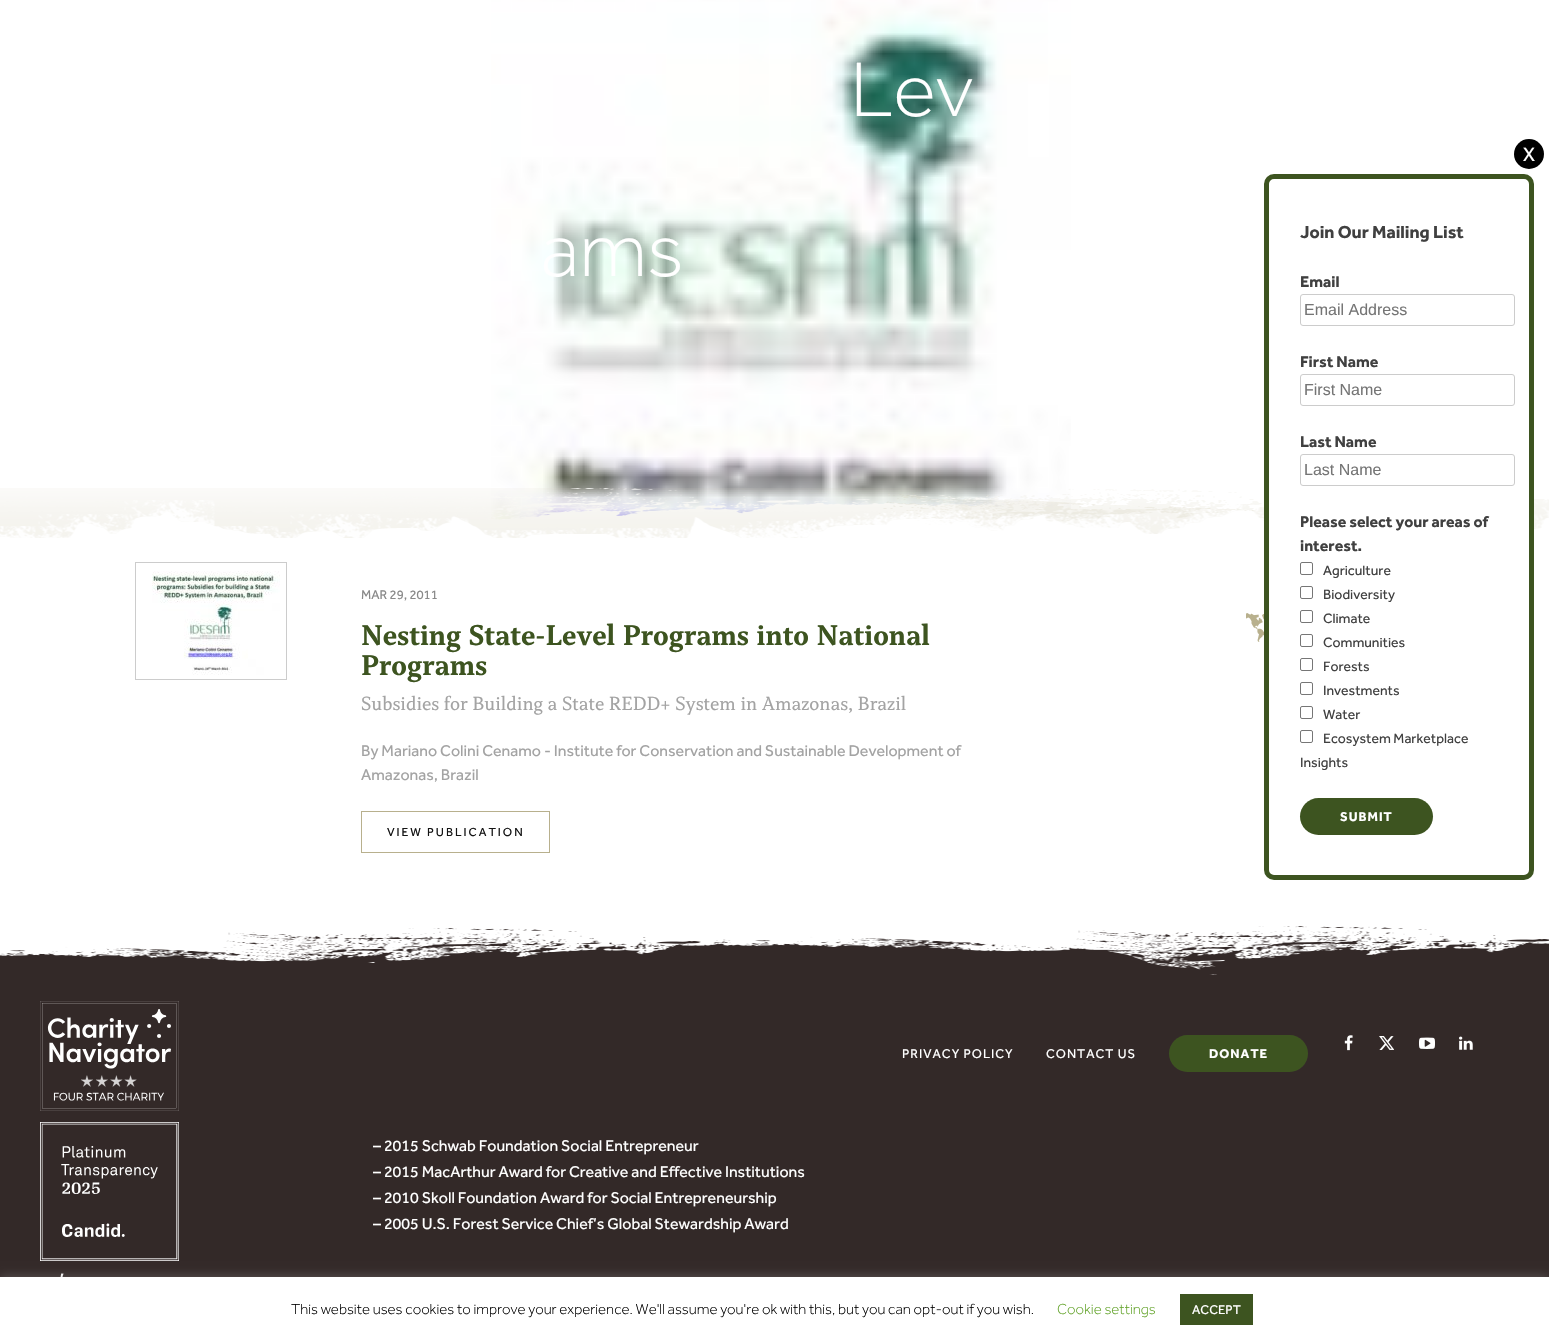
static SkFont makeFont(const char* family, int weight, float size, bool italic = false) {
  SkFontStyle style(weight, SkFontStyle::kNormal_Width,
    italic ? SkFontStyle::kItalic_Slant : SkFontStyle::kUpright_Slant);
  SkFont result(fontMgr->matchFamilyStyle(family, style), size);
  result.setSubpixel(true);
  return result;
}

static void text(SkCanvas* c, const char* s, float x, float y, const SkFont& font, SkColor color) {
  SkPaint ink(SkColor4f::FromColor(color));
  ink.setAntiAlias(true);
  c->drawString(s, x, y, font, ink);
}

static void spacedText(SkCanvas* c, const char* s, float x, float y, const SkFont& font, const SkPaint& ink, float letter, float word) {
  std::vector<SkGlyphID> glyphs(font.countText(s, strlen(s), SkTextEncoding::kUTF8));
  std::vector<float> xs(glyphs.size());
  font.textToGlyphs(s, strlen(s), SkTextEncoding::kUTF8, glyphs);
  font.getXPos(glyphs, xs, x);
  float extra = 0;
  for (size_t i = 0; i < glyphs.size(); i++) {
    xs[i] += extra;
    extra += letter + word * (glyphs[i] == font.unicharToGlyph(' '));
  }
  c->drawTextBlob(SkTextBlob::MakeFromPosHGlyphs(glyphs, xs, y, font), 0, 0, ink);
}

static void box(SkCanvas* c, float l, float t, float r, float b, SkColor color) {
  SkPaint ink(SkColor4f::FromColor(color));
  ink.setAntiAlias(true);
  c->drawRect(SkRect::MakeLTRB(l, t, r, b), ink);
}

static void roundBox(SkCanvas* c, float l, float t, float r, float b, float radius, SkColor color) {
  SkPaint ink(SkColor4f::FromColor(color));
  ink.setAntiAlias(true);
  c->drawRoundRect(SkRect::MakeLTRB(l, t, r, b), radius, radius, ink);
}

static void picture(SkCanvas* c, const char* path, float l, float t, float r, float b) {
  auto image = SkImages::DeferredFromEncodedData(SkData::MakeFromFileName(path));
  c->drawImageRect(image, SkRect::MakeLTRB(l, t, r, b), SkSamplingOptions());
}

void draw(SkCanvas* c) {
  SkPaint paint;
  paint.setAntiAlias(true);
  c->clear(0xffffffff);
  picture(c, "img_01.png", 491, 0, 1071, 520);
  picture(c, "img_02.png", 0, 488, 1549, 538);
  SkFont face1 = makeFont("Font", 300, 80);
  text(c, "Lev", 850, 116, face1, 0xffffffff);
  text(c, "ams", 540, 276, face1, 0xffffffff);
  paint.setColor(0xff000000);
  c->drawCircle(1529, 154, 15, paint);
  SkFont face2 = makeFont("Font", 400, 20);
  text(c, "X", 1523, 161, face2, 0xffffffff);
  paint.setColor(0xffffffff);
  c->drawRoundRect(SkRect::MakeLTRB(1266.5f, 176.5f, 1531.5f, 877.5f), 7.5f, 7.5f, paint);
  paint.setStyle(SkPaint::kStroke_Style);
  paint.setStrokeWidth(5);
  paint.setColor(0xff3d5420);
  c->drawRoundRect(SkRect::MakeLTRB(1266.5f, 176.5f, 1531.5f, 877.5f), 7.5f, 7.5f, paint);
  SkFont face3 = makeFont("Font", 700, 18);
  text(c, "Join Our Mailing List", 1300, 238, face3, 0xff404040);
  SkFont face4 = makeFont("Font", 700, 16);
  text(c, "Email", 1300, 287, face4, 0xff404040);
  paint.setStrokeWidth(1);
  paint.setColor(0xffcccccc);
  c->drawRoundRect(SkRect::MakeLTRB(1300.5f, 294.5f, 1514.5f, 325.5f), 2.5f, 2.5f, paint);
  SkFont face5 = makeFont("Liberation Sans", 400, 16);
  text(c, "Email Address", 1304, 315, face5, 0xff757575);
  text(c, "First Name", 1300, 367, face4, 0xff404040);
  c->drawRoundRect(SkRect::MakeLTRB(1300.5f, 374.5f, 1514.5f, 405.5f), 2.5f, 2.5f, paint);
  text(c, "First Name", 1304, 395, face5, 0xff757575);
  text(c, "Last Name", 1300, 447, face4, 0xff404040);
  c->drawRoundRect(SkRect::MakeLTRB(1300.5f, 454.5f, 1514.5f, 485.5f), 2.5f, 2.5f, paint);
  text(c, "Last Name", 1304, 475, face5, 0xff757575);
  text(c, "Please select your areas of", 1300, 527, face4, 0xff404040);
  text(c, "interest.", 1300, 551, face4, 0xff404040);
  paint.setColor(0xff767676);
  c->drawRoundRect(SkRect::MakeLTRB(1300.5f, 562.5f, 1312.5f, 574.5f), 1.5f, 1.5f, paint);
  SkFont face6 = makeFont("Font", 400, 14);
  text(c, "Agriculture", 1323, 575, face6, 0xff404040);
  c->drawRoundRect(SkRect::MakeLTRB(1300.5f, 586.5f, 1312.5f, 598.5f), 1.5f, 1.5f, paint);
  text(c, "Biodiversity", 1323, 599, face6, 0xff404040);
  c->drawRoundRect(SkRect::MakeLTRB(1300.5f, 610.5f, 1312.5f, 622.5f), 1.5f, 1.5f, paint);
  text(c, "Climate", 1323, 623, face6, 0xff404040);
  c->drawRoundRect(SkRect::MakeLTRB(1300.5f, 634.5f, 1312.5f, 646.5f), 1.5f, 1.5f, paint);
  text(c, "Communities", 1323, 647, face6, 0xff404040);
  c->drawRoundRect(SkRect::MakeLTRB(1300.5f, 658.5f, 1312.5f, 670.5f), 1.5f, 1.5f, paint);
  text(c, "Forests", 1323, 671, face6, 0xff404040);
  c->drawRoundRect(SkRect::MakeLTRB(1300.5f, 682.5f, 1312.5f, 694.5f), 1.5f, 1.5f, paint);
  text(c, "Investments", 1323, 695, face6, 0xff404040);
  c->drawRoundRect(SkRect::MakeLTRB(1300.5f, 706.5f, 1312.5f, 718.5f), 1.5f, 1.5f, paint);
  text(c, "Water", 1323, 719, face6, 0xff404040);
  c->drawRoundRect(SkRect::MakeLTRB(1300.5f, 730.5f, 1312.5f, 742.5f), 1.5f, 1.5f, paint);
  text(c, "Ecosystem Marketplace", 1323, 743, face6, 0xff404040);
  text(c, "Insights", 1300, 767, face6, 0xff404040);
  roundBox(c, 1300, 798, 1433, 835, 18.5f, 0xff3d5420);
  SkFont face7 = makeFont("Font", 700, 13);
  paint.setStyle(SkPaint::kFill_Style);
  paint.setColor(0xffffffff);
  spacedText(c, "SUBMIT", 1340, 821, face7, paint, 1, 0);
  paint.setStyle(SkPaint::kStroke_Style);
  paint.setColor(0xffcccccc);
  c->drawRect(SkRect::MakeLTRB(135.5f, 562.5f, 286.5f, 679.5f), paint);
  picture(c, "img_03.png", 152, 571, 280, 675);
  SkFont face8 = makeFont("Font", 400, 13);
  text(c, "MAR 29, 2011", 361, 599, face8, 0xff898989);
  SkFont face9 = makeFont("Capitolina", 700, 30);
  text(c, "Nesting State-Level Programs into National", 361, 645, face9, 0xff3d5420);
  text(c, "Programs", 361, 675, face9, 0xff3d5420);
  SkFont face10 = makeFont("Capitolina", 400, 20);
  text(c, "Subsidies for Building a State REDD+ System in Amazonas, Brazil", 361, 710, face10, 0xffa3a3a3);
  SkFont face11 = makeFont("Font", 400, 16);
  text(c, "By Mariano Colini Cenamo - Institute for Conservation and Sustainable Development of", 361, 756, face11, 0xffa3a3a3);
  text(c, "Amazonas, Brazil", 361, 780, face11, 0xffa3a3a3);
  paint.setColor(0xffb8b08d);
  c->drawRect(SkRect::MakeLTRB(361.5f, 811.5f, 549.5f, 852.5f), paint);
  SkFont face12 = makeFont("Font", 400, 12);
  paint.setStyle(SkPaint::kFill_Style);
  paint.setColor(0xff141414);
  spacedText(c, "VIEW PUBLICATION", 387, 836, face12, paint, 2, 0);
  picture(c, "img_04.png", 1246, 613, 1264, 642);
  box(c, 0, 975, 1549, 1277, 0xff332928);
  picture(c, "img_05.png", 0, 926, 1549, 975);
  picture(c, "img_06.png", 1344, 1035, 1353, 1051);
  picture(c, "img_07.png", 1379, 1036, 1394, 1050);
  picture(c, "img_08.png", 1419, 1037, 1435, 1049);
  picture(c, "img_09.png", 1459, 1036, 1473, 1050);
  paint.setColor(0xffffffff);
  spacedText(c, "PRIVACY POLICY", 902, 1058, face8, paint, 1, 0);
  spacedText(c, "CONTACT US", 1046, 1058, face8, paint, 1, 0);
  roundBox(c, 1169, 1035, 1308, 1072, 18.5f, 0xff3d5420);
  spacedText(c, "DONATE", 1209, 1058, face7, paint, 1, 0);
  text(c, "– 2015 Schwab Foundation Social Entrepreneur", 373, 1151, face11, 0xffffffff);
  text(c, "– 2015 MacArthur Award for Creative and Effective Institutions", 373, 1177, face11, 0xffffffff);
  text(c, "– 2010 Skoll Foundation Award for Social Entrepreneurship", 373, 1203, face11, 0xffffffff);
  text(c, "– 2005 U.S. Forest Service Chief’s Global Stewardship Award", 373, 1229, face11, 0xffffffff);
  picture(c, "img_10.png", 40, 1001, 179, 1111);
  picture(c, "img_11.png", 40, 1122, 179, 1261);
  SkFont face13 = makeFont("Font", 700, 14);
  text(c, "’", 60, 1283, face13, 0xffffffff);
  paint.setColor(0x4dacabab);
  paint.setMaskFilter(SkMaskFilter::MakeBlur(kNormal_SkBlurStyle, 5));
  c->drawRect(SkRect::MakeLTRB(0, 1276, 1549, 1341), paint);
  paint.setMaskFilter(nullptr);
  box(c, 0, 1277, 1549, 1342, 0xffffffff);
  SkFont face14 = makeFont("Font", 300, 15);
  text(c, "This website uses cookies to improve your experience. We'll assume you're ok with this, but you can opt-out if you wish.", 291, 1314, face14, 0xff000000);
  text(c, "Cookie settings", 1057, 1314, face14, 0xff62a329);
  box(c, 1180, 1294, 1253, 1325, 0xff3d5420);
  text(c, "ACCEPT", 1192, 1314, face8, 0xffffffff);
}
